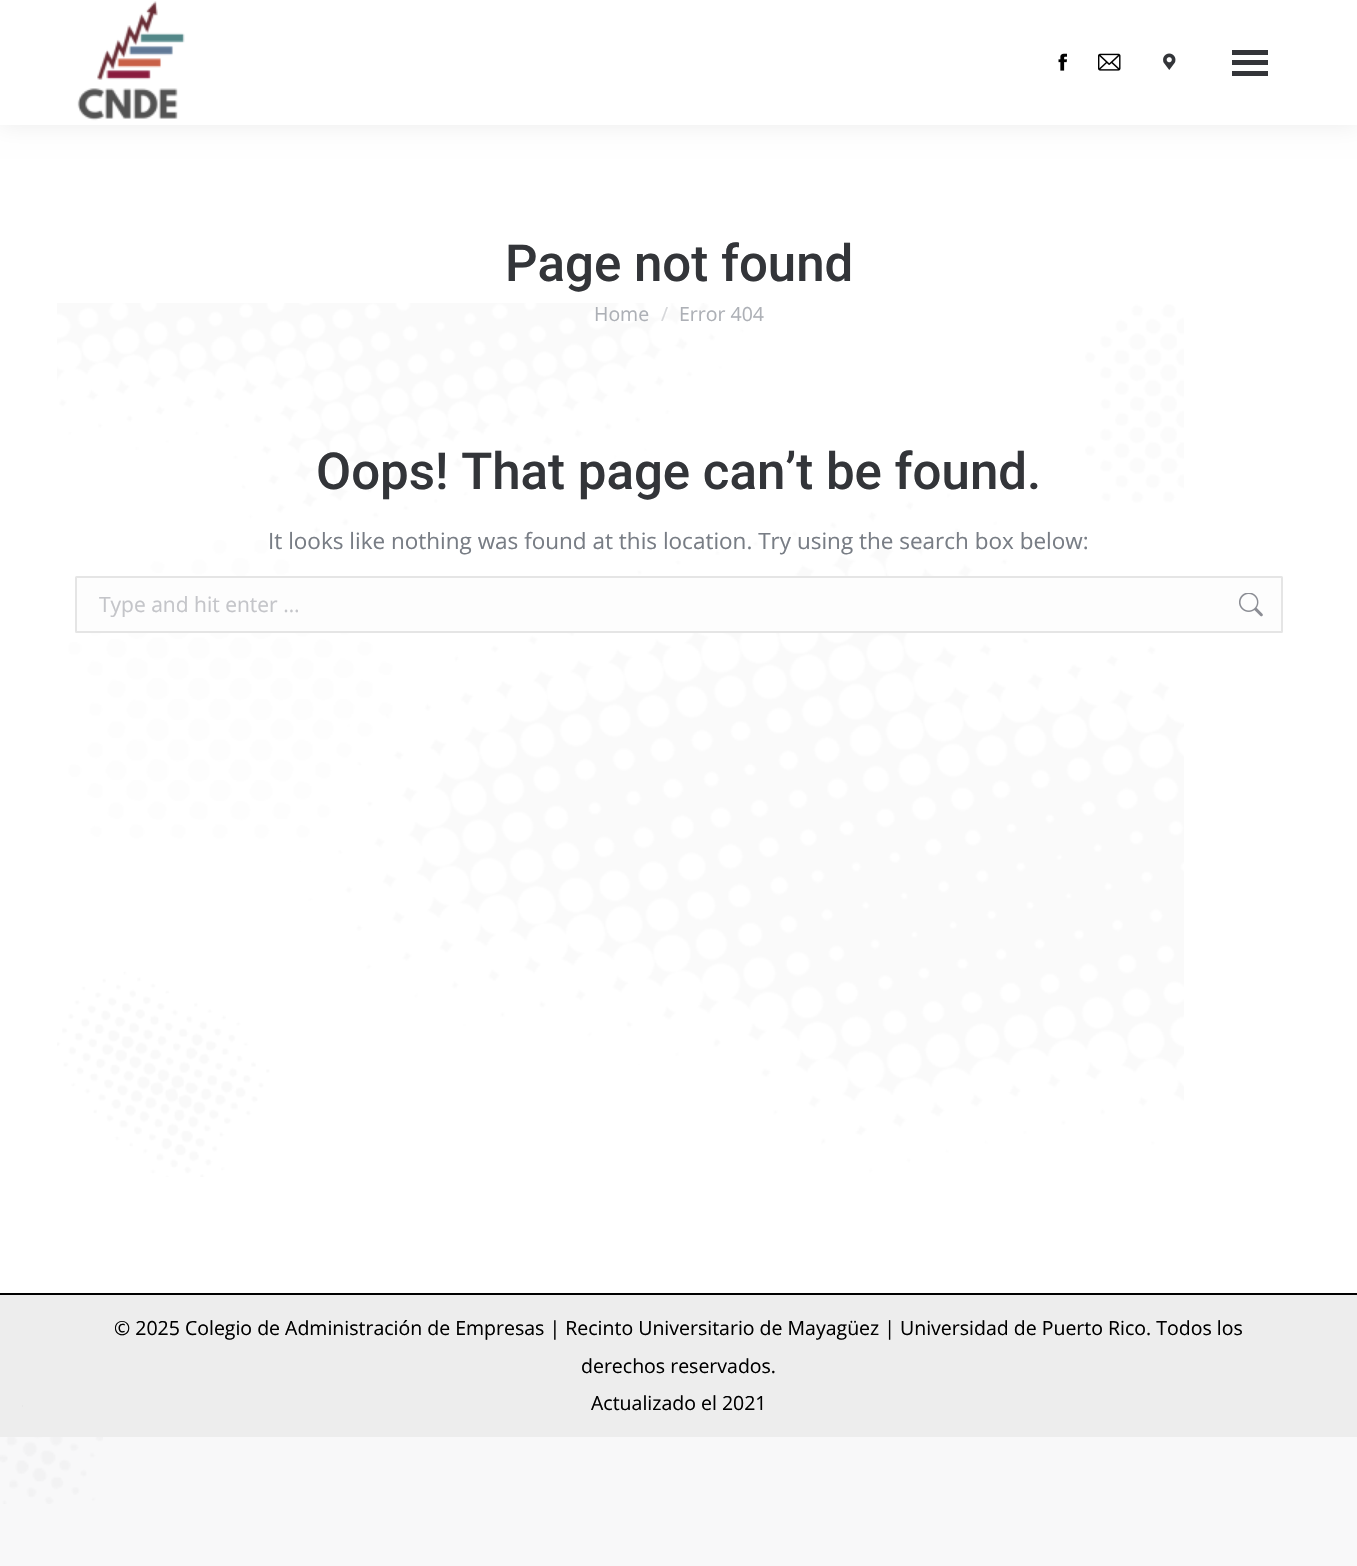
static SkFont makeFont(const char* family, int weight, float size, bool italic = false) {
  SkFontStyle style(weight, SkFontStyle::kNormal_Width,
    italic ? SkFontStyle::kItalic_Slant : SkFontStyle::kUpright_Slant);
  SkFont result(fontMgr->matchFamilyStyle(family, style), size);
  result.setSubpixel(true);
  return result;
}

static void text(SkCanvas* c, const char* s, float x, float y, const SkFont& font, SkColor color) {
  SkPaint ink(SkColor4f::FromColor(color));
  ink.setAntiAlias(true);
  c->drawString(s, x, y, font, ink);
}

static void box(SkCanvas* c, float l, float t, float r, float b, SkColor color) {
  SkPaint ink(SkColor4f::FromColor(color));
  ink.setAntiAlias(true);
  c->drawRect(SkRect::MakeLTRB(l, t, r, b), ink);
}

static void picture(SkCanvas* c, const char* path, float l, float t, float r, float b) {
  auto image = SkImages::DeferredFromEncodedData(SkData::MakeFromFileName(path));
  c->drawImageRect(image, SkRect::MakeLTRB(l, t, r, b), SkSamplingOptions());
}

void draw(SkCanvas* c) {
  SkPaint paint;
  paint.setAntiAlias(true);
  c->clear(0xfff8f8f9);
  picture(c, "img_01.png", 0, 1437, 103, 1504);
  box(c, 0, 125, 1357, 1293, 0xffffffff);
  picture(c, "img_02.png", 57, 303, 1184, 1177);
  paint.setColor(0x12000000);
  paint.setMaskFilter(SkMaskFilter::MakeBlur(kNormal_SkBlurStyle, 11));
  c->drawRect(SkRect::MakeLTRB(-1, -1, 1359, 126), paint);
  paint.setMaskFilter(nullptr);
  box(c, 0, 0, 1357, 125, 0xffffffff);
  picture(c, "img_03.png", 77, 1, 185, 121);
  picture(c, "img_04.png", 1058, 53, 1067, 71);
  picture(c, "img_05.png", 1098, 53, 1121, 71);
  picture(c, "img_06.png", 1163, 53, 1176, 70);
  box(c, 1232, 50, 1268, 55, 0xff333539);
  box(c, 1232, 60, 1268, 65, 0xff333539);
  box(c, 1232, 71, 1268, 76, 0xff333539);
  SkFont face1 = makeFont("Roboto", 500, 51);
  text(c, "Page not found", 505, 281, face1, 0xff333539);
  SkFont face2 = makeFont("Open Sans", 400, 19.5f);
  text(c, "Home", 594, 321, face2, 0xffadb0b6);
  text(c, "/", 661, 321, face2, 0xffd6d7da);
  text(c, "Error 404", 679, 321, face2, 0xffadb0b6);
  text(c, "Oops! That page can’t be found.", 316, 489, face1, 0xff333539);
  SkFont face3 = makeFont("Open Sans", 400, 22.5f);
  text(c, "It looks like nothing was found at this location. Try using the search box below:", 268, 549, face3, 0xff787d85);
  paint.setColor(0xfffdfdfd);
  c->drawRoundRect(SkRect::MakeLTRB(76, 577, 1282, 632), 0.5f, 0.5f, paint);
  paint.setStyle(SkPaint::kStroke_Style);
  paint.setStrokeWidth(2);
  paint.setColor(0xffe5e5e5);
  c->drawRoundRect(SkRect::MakeLTRB(76, 577, 1282, 632), 0.5f, 0.5f, paint);
  SkFont face4 = makeFont("Open Sans", 400, 21);
  text(c, "Type and hit enter …", 99, 612, face4, 0xffc4c5c9);
  picture(c, "img_07.png", 1239, 593, 1263, 617);
  box(c, 0, 1295, 1357, 1437, 0xffededed);
  picture(c, "img_08.png", 22, 1405, 23, 1407);
  box(c, 0, 1293, 1357, 1295, 0xff000000);
  text(c, "© 2025 Colegio de Administración de Empresas | Recinto Universitario de Mayagüez | Universidad de Puerto Rico. Todos los", 114, 1335, face2, 0xff000000);
  text(c, "derechos reservados.", 581, 1373, face2, 0xff000000);
  text(c, "Actualizado el 2021", 591, 1410, face2, 0xff000000);
}
